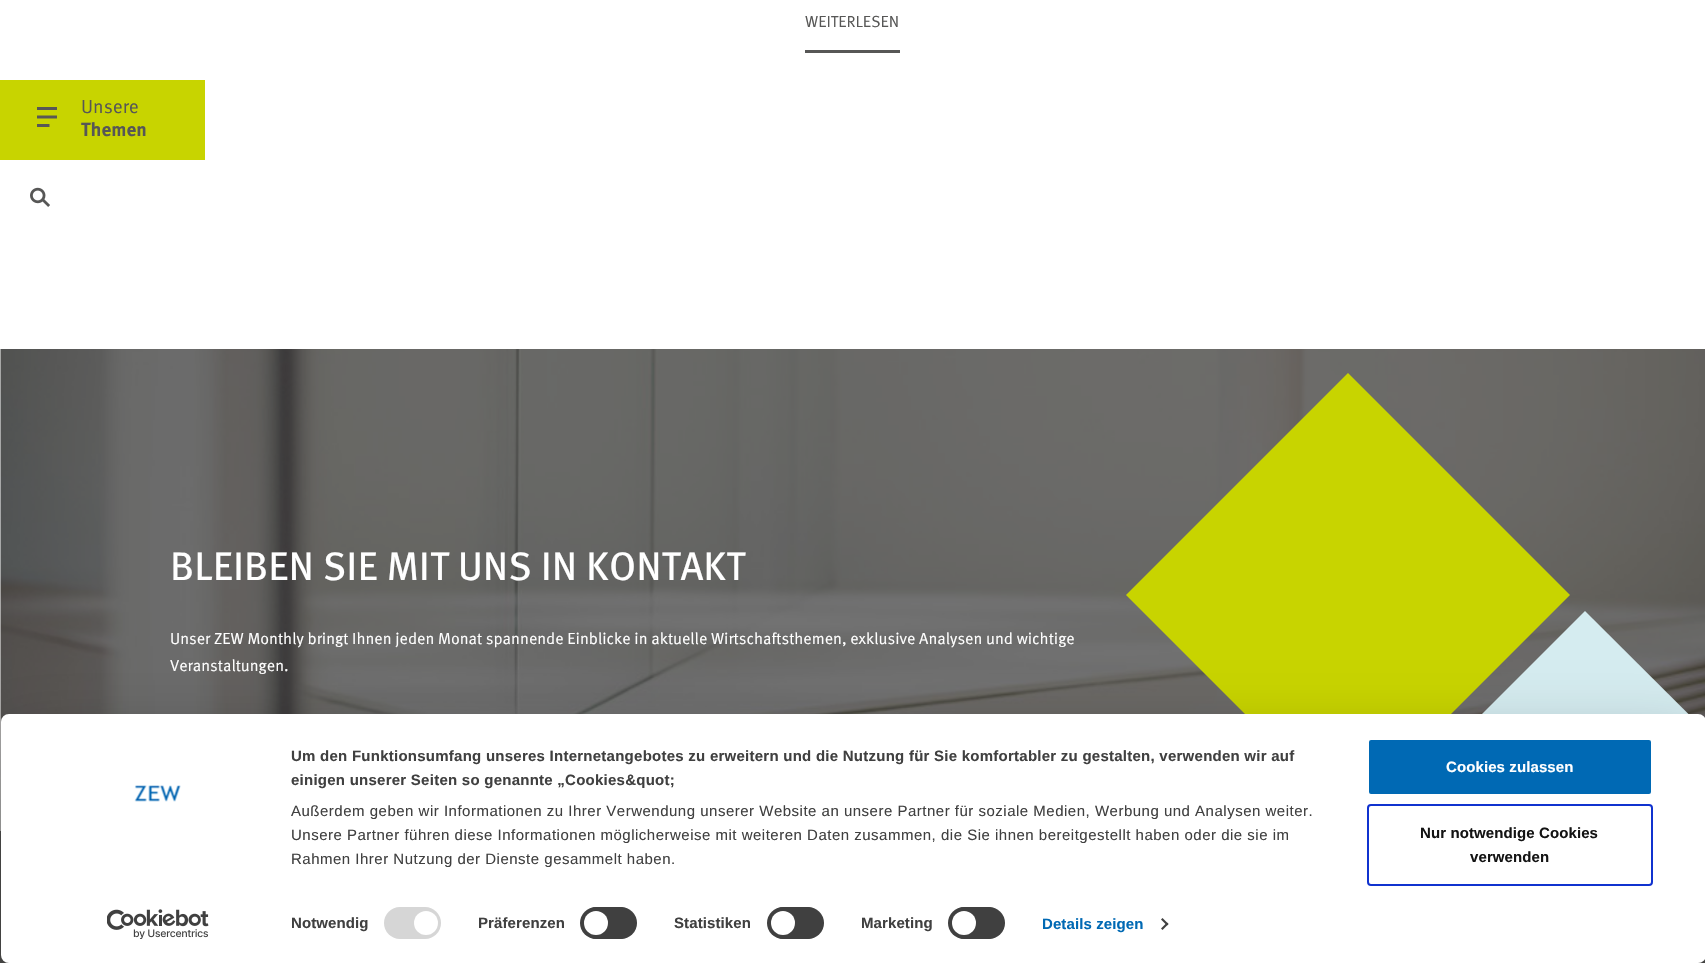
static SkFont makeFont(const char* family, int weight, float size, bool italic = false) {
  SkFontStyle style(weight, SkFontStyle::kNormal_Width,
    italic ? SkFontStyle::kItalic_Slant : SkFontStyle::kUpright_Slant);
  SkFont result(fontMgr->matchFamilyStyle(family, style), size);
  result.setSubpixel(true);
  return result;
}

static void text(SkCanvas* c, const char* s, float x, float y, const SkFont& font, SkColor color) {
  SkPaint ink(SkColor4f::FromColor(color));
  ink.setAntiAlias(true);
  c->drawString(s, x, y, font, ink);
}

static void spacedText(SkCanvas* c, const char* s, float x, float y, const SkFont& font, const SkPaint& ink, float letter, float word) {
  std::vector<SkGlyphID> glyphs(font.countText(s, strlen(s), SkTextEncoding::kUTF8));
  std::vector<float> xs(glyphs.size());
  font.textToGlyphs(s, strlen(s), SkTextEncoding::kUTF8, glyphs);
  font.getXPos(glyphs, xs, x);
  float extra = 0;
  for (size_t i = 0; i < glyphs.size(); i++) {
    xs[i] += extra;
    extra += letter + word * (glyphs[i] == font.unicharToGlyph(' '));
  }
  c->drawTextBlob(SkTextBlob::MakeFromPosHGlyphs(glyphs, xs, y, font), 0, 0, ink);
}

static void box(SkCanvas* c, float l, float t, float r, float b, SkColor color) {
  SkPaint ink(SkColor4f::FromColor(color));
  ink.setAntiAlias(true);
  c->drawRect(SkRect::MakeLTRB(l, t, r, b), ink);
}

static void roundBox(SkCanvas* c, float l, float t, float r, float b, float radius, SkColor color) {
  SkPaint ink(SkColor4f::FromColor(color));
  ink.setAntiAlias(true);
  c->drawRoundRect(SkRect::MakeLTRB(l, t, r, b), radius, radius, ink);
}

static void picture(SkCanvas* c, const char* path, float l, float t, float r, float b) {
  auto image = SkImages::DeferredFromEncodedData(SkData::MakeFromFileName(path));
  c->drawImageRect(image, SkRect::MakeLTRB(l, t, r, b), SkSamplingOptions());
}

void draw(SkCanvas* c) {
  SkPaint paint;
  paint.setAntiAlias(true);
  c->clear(0xffffffff);
  SkFont face1 = makeFont("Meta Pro", 400, 16);
  text(c, "WEITERLESEN", 805, 27, face1, 0xff575756);
  box(c, 805, 50, 900, 53, 0xff575756);
  box(c, 0, 80, 205, 160, 0xffc8d400);
  picture(c, "img_01.png", 37, 107, 57, 127);
  SkFont face2 = makeFont("Meta Pro", 400, 19);
  text(c, "Unsere", 81, 113, face2, 0xff575756);
  SkFont face3 = makeFont("Meta Pro", 700, 19);
  text(c, "Themen", 81, 136, face3, 0xff575756);
  picture(c, "img_02.png", 30, 187, 50, 207);
  picture(c, "img_03.png", 0, 349, 1705, 831);
  SkFont face4 = makeFont("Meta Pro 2", 400, 39.75f);
  text(c, "BLEIBEN SIE MIT UNS IN KONTAKT", 170, 580, face4, 0xffffffff);
  text(c, "Unser ZEW Monthly bringt Ihnen jeden Monat spannende Einblicke in aktuelle Wirtschaftsthemen, exklusive Analysen und wichtige", 170, 644, face1, 0xffffffff);
  text(c, "Veranstaltungen.", 170, 671, face1, 0xffffffff);
  paint.setColor(0xffc8d400);
  c->drawPath(SkPathBuilder().moveTo(1348, 373).lineTo(1570, 595).lineTo(1348, 817).lineTo(1126, 595).close().detach(), paint);
  paint.setColor(0xffd5ecf0);
  c->drawPath(SkPathBuilder().moveTo(1585, 611).lineTo(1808, 833).lineTo(1585, 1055).lineTo(1363, 833).close().detach(), paint);
  box(c, 0, 831, 1705, 963, 0xff4d4d4c);
  c->save();
  c->clipPath(SkPathBuilder(SkPathFillType::kEvenOdd).moveTo(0, 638).lineTo(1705, 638).lineTo(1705, 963).lineTo(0, 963).close().moveTo(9, 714).lineTo(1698, 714).cubicTo(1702.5f, 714, 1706, 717.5f, 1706, 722).lineTo(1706, 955).cubicTo(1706, 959.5f, 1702.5f, 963, 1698, 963).lineTo(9, 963).cubicTo(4.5f, 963, 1, 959.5f, 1, 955).lineTo(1, 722).cubicTo(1, 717.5f, 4.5f, 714, 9, 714).close().detach(), true);
  paint.setColor(0x4d000000);
  paint.setMaskFilter(SkMaskFilter::MakeBlur(kNormal_SkBlurStyle, 35));
  c->drawRoundRect(SkRect::MakeLTRB(1, 744, 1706, 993), 8, 8, paint);
  paint.setMaskFilter(nullptr);
  c->restore();
  roundBox(c, 1, 714, 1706, 963, 8, 0xffffffff);
  picture(c, "img_04.png", 134, 785, 181, 802);
  picture(c, "img_05.png", 107, 909, 209, 939);
  SkFont face5 = makeFont("Liberation Sans", 700, 15);
  paint.setColor(0xff404040);
  spacedText(c, "Um den Funktionsumfang unseres Internetangebotes zu erweitern und die Nutzung für Sie komfortabler zu gestalten, verwenden wir auf", 291, 761, face5, paint, 0.25f, 0);
  spacedText(c, "einigen unserer Seiten so genannte „Cookies&quot;", 291, 785, face5, paint, 0.25f, 0);
  SkFont face6 = makeFont("Liberation Sans", 400, 15);
  spacedText(c, "Außerdem geben wir Informationen zu Ihrer Verwendung unserer Website an unsere Partner für soziale Medien, Werbung und Analysen weiter.", 291, 816, face6, paint, 0.5f, 0);
  spacedText(c, "Unsere Partner führen diese Informationen möglicherweise mit weiteren Daten zusammen, die Sie ihnen bereitgestellt haben oder die sie im", 291, 840, face6, paint, 0.5f, 0);
  spacedText(c, "Rahmen Ihrer Nutzung der Dienste gesammelt haben.", 291, 864, face6, paint, 0.5f, 0);
  spacedText(c, "Notwendig", 291, 928, face5, paint, 0.1f, 0);
  roundBox(c, 384, 907, 441, 939, 16, 0xffd6d6d6);
  paint.setColor(0xffffffff);
  c->drawCircle(426, 923, 12, paint);
  paint.setColor(0xff404040);
  spacedText(c, "Präferenzen", 478, 928, face5, paint, 0.1f, 0);
  paint.setStyle(SkPaint::kStroke_Style);
  paint.setStrokeWidth(1);
  paint.setColor(0xff767676);
  c->drawRoundRect(SkRect::MakeLTRB(592.5f, 907.5f, 623.5f, 938.5f), 1.5f, 1.5f, paint);
  roundBox(c, 580, 907, 637, 939, 16, 0xff404040);
  paint.setStyle(SkPaint::kFill_Style);
  paint.setColor(0xffffffff);
  c->drawCircle(596, 923, 12, paint);
  paint.setColor(0xff404040);
  spacedText(c, "Statistiken", 674, 928, face5, paint, 0.1f, 0);
  paint.setStyle(SkPaint::kStroke_Style);
  paint.setColor(0xff767676);
  c->drawRoundRect(SkRect::MakeLTRB(779.5f, 907.5f, 810.5f, 938.5f), 1.5f, 1.5f, paint);
  roundBox(c, 767, 907, 824, 939, 16, 0xff404040);
  paint.setStyle(SkPaint::kFill_Style);
  paint.setColor(0xffffffff);
  c->drawCircle(783, 923, 12, paint);
  paint.setColor(0xff404040);
  spacedText(c, "Marketing", 861, 928, face5, paint, 0.1f, 0);
  paint.setStyle(SkPaint::kStroke_Style);
  paint.setColor(0xff767676);
  c->drawRoundRect(SkRect::MakeLTRB(960.5f, 907.5f, 991.5f, 938.5f), 1.5f, 1.5f, paint);
  roundBox(c, 948, 907, 1005, 939, 16, 0xff404040);
  paint.setStyle(SkPaint::kFill_Style);
  paint.setColor(0xffffffff);
  c->drawCircle(964, 923, 12, paint);
  paint.setColor(0xff0069b4);
  spacedText(c, "Details zeigen", 1042, 929, face5, paint, 0.1f, 0);
  paint.setColor(0xff404040);
  c->drawPath(SkPathBuilder().moveTo(1162.5f, 918).lineTo(1168.5f, 924).lineTo(1167, 925.5f).lineTo(1161, 919.5f).close().detach(), paint);
  c->drawPath(SkPathBuilder().moveTo(1167, 922.5f).lineTo(1168.5f, 924).lineTo(1162.5f, 930).lineTo(1161, 928.5f).close().detach(), paint);
  paint.setColor(0xff0069b4);
  c->drawRoundRect(SkRect::MakeLTRB(1368, 739, 1652, 795), 3, 3, paint);
  paint.setStyle(SkPaint::kStroke_Style);
  paint.setStrokeWidth(2);
  paint.setColor(0xffffffff);
  c->drawRoundRect(SkRect::MakeLTRB(1368, 739, 1652, 795), 3, 3, paint);
  paint.setStyle(SkPaint::kFill_Style);
  spacedText(c, "Cookies zulassen", 1446, 772, face5, paint, 0.1f, 0);
  paint.setStyle(SkPaint::kStroke_Style);
  paint.setColor(0xff1032cf);
  c->drawRoundRect(SkRect::MakeLTRB(1368, 805, 1652, 885), 3, 3, paint);
  paint.setStyle(SkPaint::kFill_Style);
  paint.setColor(0xff141414);
  spacedText(c, "Nur notwendige Cookies", 1420, 838, face5, paint, 0.1f, 0);
  spacedText(c, "verwenden", 1470, 862, face5, paint, 0.1f, 0);
}
